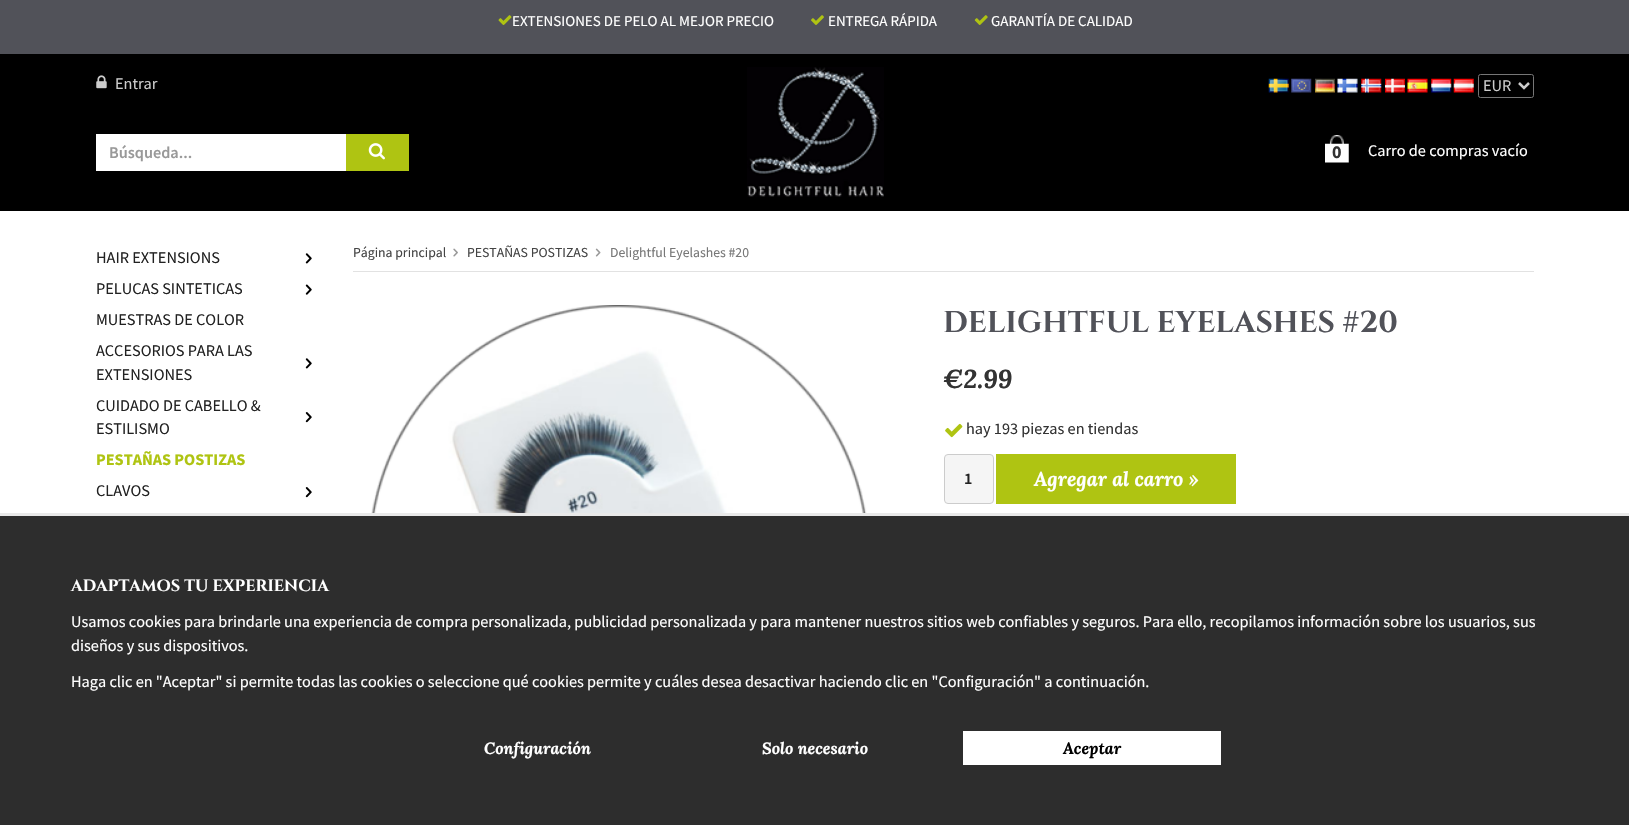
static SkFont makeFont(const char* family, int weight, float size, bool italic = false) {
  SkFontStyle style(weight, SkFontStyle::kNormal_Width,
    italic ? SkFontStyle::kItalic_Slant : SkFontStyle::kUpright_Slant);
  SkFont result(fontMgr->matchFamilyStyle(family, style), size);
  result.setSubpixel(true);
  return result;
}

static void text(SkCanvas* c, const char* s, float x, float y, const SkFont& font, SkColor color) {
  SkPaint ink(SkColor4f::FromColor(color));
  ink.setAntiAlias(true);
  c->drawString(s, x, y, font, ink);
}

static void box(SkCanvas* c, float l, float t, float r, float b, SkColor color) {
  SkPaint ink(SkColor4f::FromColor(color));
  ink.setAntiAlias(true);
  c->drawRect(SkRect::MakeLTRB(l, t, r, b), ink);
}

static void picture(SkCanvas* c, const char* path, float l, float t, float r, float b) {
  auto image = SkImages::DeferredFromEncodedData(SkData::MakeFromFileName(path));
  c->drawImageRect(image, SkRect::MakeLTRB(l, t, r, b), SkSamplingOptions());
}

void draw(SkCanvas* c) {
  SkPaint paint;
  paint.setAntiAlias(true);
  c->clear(0xffffffff);
  box(c, 0, 0, 1629, 54, 0xff515259);
  picture(c, "img_01.png", 498, 15, 512, 25);
  SkFont face1 = makeFont("Source Sans Pro", 400, 15);
  text(c, "EXTENSIONES DE PELO AL MEJOR PRECIO", 512, 26, face1, 0xffffffff);
  picture(c, "img_02.png", 811, 15, 824, 25);
  text(c, "ENTREGA RÁPIDA", 828, 26, face1, 0xffffffff);
  picture(c, "img_03.png", 974, 15, 988, 25);
  text(c, "GARANTÍA DE CALIDAD", 991, 26, face1, 0xffffffff);
  box(c, 0, 54, 1629, 211, 0xff000000);
  picture(c, "img_04.png", 96, 75, 107, 89);
  SkFont face2 = makeFont("Source Sans Pro", 400, 16.25f);
  text(c, "Entrar", 115, 89, face2, 0xffcccccc);
  box(c, 96, 134, 346, 171, 0xffffffff);
  SkFont face3 = makeFont("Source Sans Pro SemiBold", 600, 16.25f);
  text(c, "Búsqueda...", 109, 158, face3, 0xff999999);
  box(c, 346, 134, 409, 171, 0xffafc412);
  picture(c, "img_05.png", 368, 143, 385, 160);
  picture(c, "img_06.png", 747, 67, 884, 197);
  picture(c, "img_07.png", 1268, 78, 1289, 93);
  picture(c, "img_08.png", 1291, 78, 1312, 93);
  picture(c, "img_09.png", 1315, 78, 1335, 93);
  picture(c, "img_10.png", 1337, 78, 1358, 93);
  picture(c, "img_11.png", 1361, 78, 1382, 93);
  picture(c, "img_12.png", 1385, 78, 1405, 93);
  picture(c, "img_13.png", 1407, 78, 1428, 93);
  picture(c, "img_14.png", 1431, 78, 1452, 93);
  picture(c, "img_15.png", 1453, 78, 1474, 93);
  paint.setStyle(SkPaint::kStroke_Style);
  paint.setStrokeWidth(1);
  paint.setColor(0xff767676);
  c->drawRoundRect(SkRect::MakeLTRB(1478.5f, 74.5f, 1533.5f, 97.5f), 2, 2, paint);
  paint.setStrokeWidth(2.5f);
  paint.setColor(0xffcccccc);
  c->drawPath(SkPathBuilder().moveTo(1519, 83).lineTo(1524, 88).lineTo(1529, 83).detach(), paint);
  text(c, "EUR", 1483, 91, face2, 0xffcccccc);
  picture(c, "img_16.png", 1325, 135, 1349, 163);
  SkFont face4 = makeFont("Source Sans Pro", 700, 18);
  text(c, "0", 1332, 158, face4, 0xff333333);
  text(c, "Carro de compras vacío", 1368, 156, face2, 0xffffffff);
  text(c, "HAIR EXTENSIONS", 96, 263, face2, 0xff222222);
  picture(c, "img_17.png", 305, 253, 312, 264);
  text(c, "PELUCAS SINTETICAS", 96, 294, face2, 0xff222222);
  picture(c, "img_18.png", 305, 284, 312, 295);
  text(c, "MUESTRAS DE COLOR", 96, 325, face2, 0xff222222);
  text(c, "ACCESORIOS PARA LAS", 96, 356, face2, 0xff222222);
  picture(c, "img_17.png", 305, 358, 312, 369);
  text(c, "EXTENSIONES", 96, 380, face2, 0xff222222);
  text(c, "CUIDADO DE CABELLO &", 96, 411, face2, 0xff222222);
  picture(c, "img_19.png", 305, 412, 312, 423);
  text(c, "ESTILISMO", 96, 434, face2, 0xff222222);
  SkFont face5 = makeFont("Source Sans Pro", 700, 16.25f);
  text(c, "PESTAÑAS POSTIZAS", 96, 465, face5, 0xffafc412);
  text(c, "CLAVOS", 96, 496, face2, 0xff222222);
  picture(c, "img_19.png", 305, 487, 312, 498);
  box(c, 353, 271, 1534, 272, 0xffe2e2e2);
  SkFont face6 = makeFont("Source Sans Pro", 400, 13.75f);
  text(c, "Página principal", 353, 257, face6, 0xff444444);
  picture(c, "img_20.png", 453, 248, 458, 257);
  text(c, "PESTAÑAS POSTIZAS", 467, 257, face6, 0xff444444);
  picture(c, "img_21.png", 595, 248, 601, 257);
  text(c, "Delightful Eyelashes #20", 610, 257, face6, 0xff777777);
  picture(c, "img_22.png", 371, 305, 867, 513);
  SkFont face7 = makeFont("Cinzel", 700, 30);
  text(c, "DELIGHTFUL EYELASHES #20", 943, 332, face7, 0xff515259);
  SkFont face8 = makeFont("Lora", 700, 26, true);
  text(c, "€2.99", 943, 388, face8, 0xff333333);
  picture(c, "img_23.png", 945, 423, 963, 438);
  text(c, "hay 193 piezas en tiendas", 966, 434, face2, 0xff333333);
  paint.setStyle(SkPaint::kFill_Style);
  paint.setColor(0xfff5f5f5);
  c->drawRoundRect(SkRect::MakeLTRB(944.5f, 454.5f, 993.5f, 503.5f), 3.5f, 3.5f, paint);
  paint.setStyle(SkPaint::kStroke_Style);
  paint.setStrokeWidth(1);
  paint.setColor(0xffcccccc);
  c->drawRoundRect(SkRect::MakeLTRB(944.5f, 454.5f, 993.5f, 503.5f), 3.5f, 3.5f, paint);
  text(c, "1", 964, 484, face3, 0xff222222);
  box(c, 996, 454, 1236, 504, 0xffafc412);
  SkFont face9 = makeFont("Lora", 700, 20, true);
  text(c, "Agregar al carro »", 1034, 486, face9, 0xffffffff);
  box(c, 0, 516, 1629, 825, 0xff2d2d2d);
  box(c, 0, 513, 1629, 516, 0xffe9e9e9);
  SkFont face10 = makeFont("Cinzel", 700, 16.25f);
  text(c, "ADAPTAMOS TU EXPERIENCIA", 71, 591, face10, 0xffffffff);
  text(c, "Usamos cookies para brindarle una experiencia de compra personalizada, publicidad personalizada y para mantener nuestros sitios web confiables y seguros. Para ello, recopilamos información sobre los usuarios, sus", 71, 627, face2, 0xffffffff);
  text(c, "diseños y sus dispositivos.", 71, 651, face2, 0xffffffff);
  text(c, "Haga clic en \"Aceptar\" si permite todas las cookies o seleccione qué cookies permite y cuáles desea desactivar haciendo clic en \"Configuración\" a continuación.", 71, 687, face2, 0xffffffff);
  SkFont face11 = makeFont("Lora", 700, 16.25f, true);
  text(c, "Configuración", 484, 754, face11, 0xffffffff);
  text(c, "Solo necesario", 762, 754, face11, 0xffffffff);
  box(c, 963, 731, 1221, 765, 0xffffffff);
  text(c, "Aceptar", 1063, 754, face11, 0xff000000);
}
